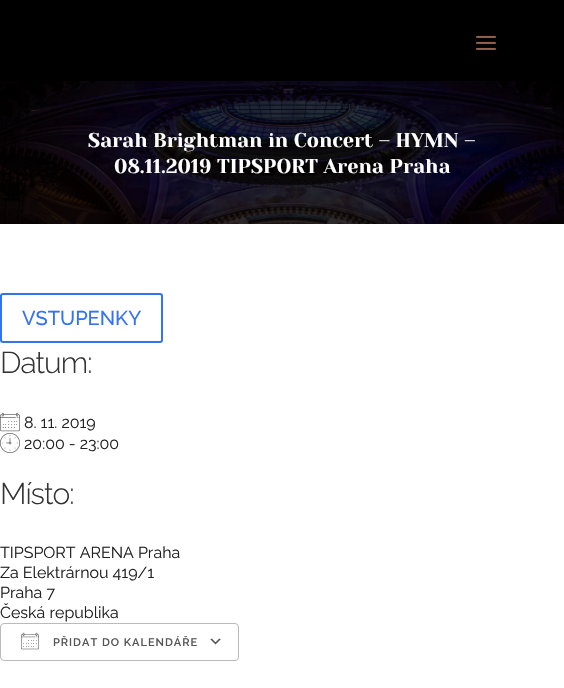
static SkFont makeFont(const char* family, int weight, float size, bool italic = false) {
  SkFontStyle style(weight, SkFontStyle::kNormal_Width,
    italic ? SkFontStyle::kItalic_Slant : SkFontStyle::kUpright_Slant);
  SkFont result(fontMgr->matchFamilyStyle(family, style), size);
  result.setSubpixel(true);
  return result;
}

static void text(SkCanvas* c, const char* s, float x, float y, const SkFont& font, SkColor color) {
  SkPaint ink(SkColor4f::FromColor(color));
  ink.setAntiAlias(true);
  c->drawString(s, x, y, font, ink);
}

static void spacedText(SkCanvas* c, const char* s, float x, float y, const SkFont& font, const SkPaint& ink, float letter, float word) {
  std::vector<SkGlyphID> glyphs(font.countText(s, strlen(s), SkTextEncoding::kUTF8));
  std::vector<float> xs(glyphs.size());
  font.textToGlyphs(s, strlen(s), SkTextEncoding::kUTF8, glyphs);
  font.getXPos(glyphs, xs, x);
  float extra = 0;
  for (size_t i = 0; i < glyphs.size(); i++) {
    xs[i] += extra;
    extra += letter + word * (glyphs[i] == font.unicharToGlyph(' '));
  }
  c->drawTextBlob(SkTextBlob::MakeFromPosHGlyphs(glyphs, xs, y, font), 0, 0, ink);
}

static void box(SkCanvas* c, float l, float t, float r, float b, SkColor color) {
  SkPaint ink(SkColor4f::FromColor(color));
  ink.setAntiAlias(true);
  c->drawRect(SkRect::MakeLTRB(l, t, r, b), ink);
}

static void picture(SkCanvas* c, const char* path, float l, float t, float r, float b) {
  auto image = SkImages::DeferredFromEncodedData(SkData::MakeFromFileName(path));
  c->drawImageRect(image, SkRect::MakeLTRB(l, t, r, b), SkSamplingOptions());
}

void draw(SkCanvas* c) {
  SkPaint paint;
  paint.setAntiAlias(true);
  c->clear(0xffffffff);
  box(c, 0, 0, 564, 81, 0xff000000);
  picture(c, "img_01.png", 476, 35, 496, 50);
  picture(c, "img_02.png", 0, 81, 564, 224);
  SkFont face1 = makeFont("Yeseva One", 400, 20);
  text(c, "Sarah Brightman in Concert – HYMN –", 88, 147, face1, 0xffffffff);
  text(c, "08.11.2019 TIPSPORT Arena Praha", 114, 173, face1, 0xffffffff);
  paint.setStyle(SkPaint::kStroke_Style);
  paint.setStrokeWidth(2);
  paint.setColor(0xff3372f0);
  c->drawRoundRect(SkRect::MakeLTRB(1, 294, 162, 342), 2, 2, paint);
  SkFont face2 = makeFont("Raleway", 500, 20);
  text(c, "VSTUPENKY", 22, 325, face2, 0xff3372f0);
  SkFont face3 = makeFont("Raleway", 300, 30);
  paint.setStyle(SkPaint::kFill_Style);
  paint.setColor(0xff333333);
  spacedText(c, "Datum:", 0, 373, face3, paint, -1, 0);
  picture(c, "img_03.png", 0, 412, 20, 432);
  SkFont face4 = makeFont("Raleway", 400, 16);
  text(c, "8. 11. 2019", 24, 428, face4, 0xff212121);
  picture(c, "img_04.png", 0, 433, 20, 453);
  text(c, "20:00 - 23:00", 24, 449, face4, 0xff212121);
  spacedText(c, "Místo:", 0, 504, face3, paint, -1, 0);
  text(c, "TIPSPORT ARENA Praha", 0, 558, face4, 0xff212121);
  text(c, "Za Elektrárnou 419/1", 0, 578, face4, 0xff212121);
  text(c, "Praha 7", 0, 598, face4, 0xff212121);
  text(c, "Česká republika", 0, 618, face4, 0xff212121);
  picture(c, "img_05.png", 210, 638, 221, 645);
  paint.setStyle(SkPaint::kStroke_Style);
  paint.setStrokeWidth(1);
  paint.setColor(0xffbababa);
  c->drawRoundRect(SkRect::MakeLTRB(0.5f, 623.5f, 238.5f, 660.5f), 3.5f, 3.5f, paint);
  picture(c, "img_06.png", 21, 632, 39, 650);
  SkFont face5 = makeFont("Raleway", 600, 11);
  paint.setStyle(SkPaint::kFill_Style);
  paint.setColor(0xff545454);
  spacedText(c, "PŘIDAT DO KALENDÁŘE", 53, 646, face5, paint, 1, 0);
}
